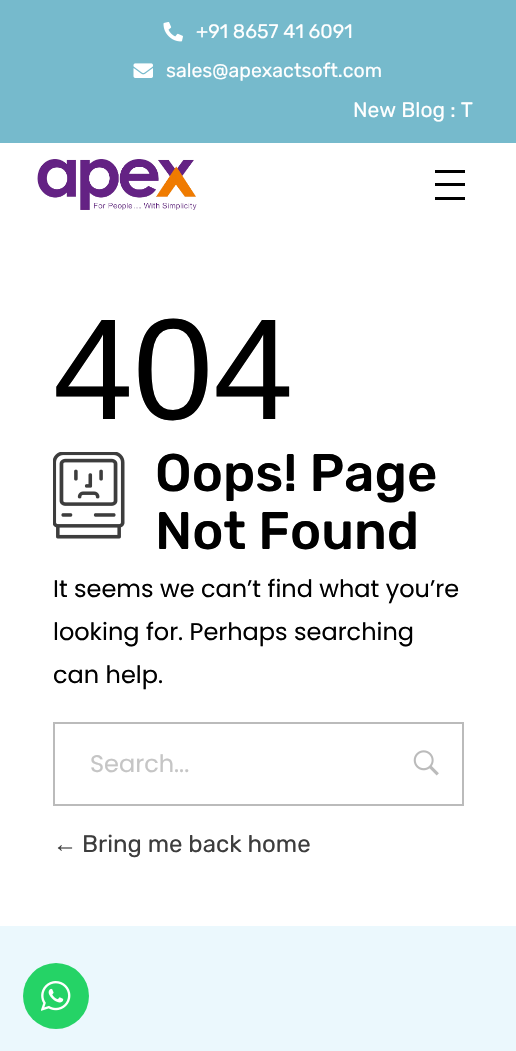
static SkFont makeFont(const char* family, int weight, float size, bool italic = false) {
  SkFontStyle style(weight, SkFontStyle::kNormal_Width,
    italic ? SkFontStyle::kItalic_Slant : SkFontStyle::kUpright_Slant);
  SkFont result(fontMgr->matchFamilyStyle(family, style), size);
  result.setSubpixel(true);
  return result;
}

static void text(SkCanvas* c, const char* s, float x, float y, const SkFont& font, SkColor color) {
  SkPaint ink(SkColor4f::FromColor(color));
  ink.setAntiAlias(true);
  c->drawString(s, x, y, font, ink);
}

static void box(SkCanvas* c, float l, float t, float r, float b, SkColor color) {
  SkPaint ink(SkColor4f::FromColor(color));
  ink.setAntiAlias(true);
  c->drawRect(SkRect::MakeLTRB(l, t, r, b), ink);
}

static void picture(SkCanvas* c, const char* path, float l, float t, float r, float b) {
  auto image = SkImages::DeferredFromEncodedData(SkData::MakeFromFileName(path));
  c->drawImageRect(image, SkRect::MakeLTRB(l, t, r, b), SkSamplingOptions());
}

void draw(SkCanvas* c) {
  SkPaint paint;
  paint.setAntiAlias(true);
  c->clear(0xffffffff);
  box(c, 0, 0, 516, 143, 0xff76bacc);
  picture(c, "img_01.png", 163, 22, 183, 42);
  SkFont face1 = makeFont("Rubik", 300, 19.5f);
  text(c, "+91 8657 41 6091", 196, 38, face1, 0xffffffff);
  picture(c, "img_02.png", 133, 63, 153, 78);
  text(c, "sales@apexactsoft.com", 166, 77, face1, 0xffffffff);
  SkFont face2 = makeFont("Rubik", 300, 21);
  text(c, "New Blog : T", 353, 117, face2, 0xffffffff);
  picture(c, "img_03.png", 37, 159, 197, 210);
  box(c, 435, 170, 465, 173, 0xff000000);
  box(c, 435, 183, 465, 186, 0xff000000);
  box(c, 435, 197, 465, 200, 0xff000000);
  SkFont face3 = makeFont("Liberation Sans", 400, 144);
  text(c, "404", 53, 419, face3, 0xff000000);
  picture(c, "img_04.png", 53, 452, 125, 539);
  SkFont face4 = makeFont("Rubik", 500, 52.75f);
  text(c, "Oops! Page", 155, 491, face4, 0xff000000);
  text(c, "Not Found", 155, 549, face4, 0xff000000);
  SkFont face5 = makeFont("Poppins", 400, 24);
  text(c, "It seems we can’t find what you’re", 53, 597, face5, 0xff000000);
  text(c, "looking for. Perhaps searching", 53, 640, face5, 0xff000000);
  text(c, "can help.", 53, 683, face5, 0xff000000);
  paint.setStyle(SkPaint::kStroke_Style);
  paint.setStrokeWidth(2);
  paint.setColor(0xffbbbbbb);
  c->drawRect(SkRect::MakeLTRB(54, 723, 463, 805), paint);
  text(c, "Search...", 90, 772, face5, 0xffc5c5c5);
  picture(c, "img_05.png", 413, 750, 439, 776);
  SkFont face6 = makeFont("Liberation Sans", 400, 24);
  text(c, "←", 53, 852, face6, 0xff3d3d3d);
  SkFont face7 = makeFont("Rubik", 300, 24);
  text(c, "Bring me back home", 82, 852, face7, 0xff3d3d3d);
  box(c, 0, 926, 516, 1051, 0xffebf8fd);
  paint.setStyle(SkPaint::kFill_Style);
  paint.setColor(0xff25d366);
  c->drawCircle(56, 996, 33, paint);
  picture(c, "img_06.png", 41, 981, 71, 1011);
}
